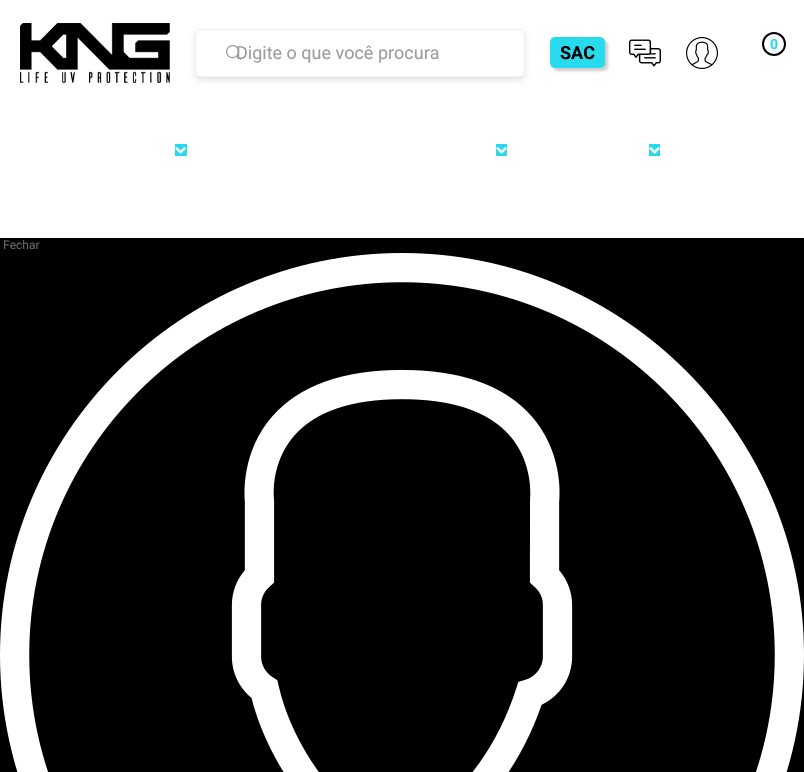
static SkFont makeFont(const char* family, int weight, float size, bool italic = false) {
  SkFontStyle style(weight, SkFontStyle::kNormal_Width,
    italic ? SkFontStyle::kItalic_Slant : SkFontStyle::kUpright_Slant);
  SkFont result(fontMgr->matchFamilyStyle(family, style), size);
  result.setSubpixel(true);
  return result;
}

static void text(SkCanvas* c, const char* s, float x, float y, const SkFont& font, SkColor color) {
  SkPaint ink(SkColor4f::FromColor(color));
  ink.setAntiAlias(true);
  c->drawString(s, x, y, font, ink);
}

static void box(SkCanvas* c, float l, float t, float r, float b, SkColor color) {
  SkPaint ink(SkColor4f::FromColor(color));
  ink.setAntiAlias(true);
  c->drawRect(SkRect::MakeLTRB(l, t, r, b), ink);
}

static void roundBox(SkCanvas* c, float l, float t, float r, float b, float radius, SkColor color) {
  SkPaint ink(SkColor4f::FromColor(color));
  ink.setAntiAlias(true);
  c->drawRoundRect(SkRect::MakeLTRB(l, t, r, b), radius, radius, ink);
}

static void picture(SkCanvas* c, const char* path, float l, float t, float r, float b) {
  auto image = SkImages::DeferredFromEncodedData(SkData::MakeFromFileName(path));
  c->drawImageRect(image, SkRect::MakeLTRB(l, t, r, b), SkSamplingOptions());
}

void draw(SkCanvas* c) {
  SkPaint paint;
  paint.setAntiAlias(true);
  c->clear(0xffffffff);
  picture(c, "img_01.png", 20, 23, 170, 83);
  paint.setColor(0x30646464);
  paint.setMaskFilter(SkMaskFilter::MakeBlur(kNormal_SkBlurStyle, 3));
  c->drawRoundRect(SkRect::MakeLTRB(195, 32, 525, 80), 5, 5, paint);
  paint.setMaskFilter(nullptr);
  paint.setColor(0xffffffff);
  c->drawRoundRect(SkRect::MakeLTRB(195.5f, 29.5f, 524.5f, 76.5f), 4.5f, 4.5f, paint);
  paint.setStyle(SkPaint::kStroke_Style);
  paint.setStrokeWidth(1);
  paint.setColor(0xffefefef);
  c->drawRoundRect(SkRect::MakeLTRB(195.5f, 29.5f, 524.5f, 76.5f), 4.5f, 4.5f, paint);
  SkFont face1 = makeFont("Roboto", 400, 18);
  text(c, "Digite o que você procura", 236, 59, face1, 0xff9c9c9c);
  picture(c, "img_02.png", 226, 45, 241, 60);
  paint.setStyle(SkPaint::kFill_Style);
  paint.setColor(0x33000000);
  paint.setMaskFilter(SkMaskFilter::MakeBlur(kNormal_SkBlurStyle, 1.5f));
  c->drawRoundRect(SkRect::MakeLTRB(553, 40, 608, 71), 5, 5, paint);
  paint.setMaskFilter(nullptr);
  roundBox(c, 550, 37, 605, 68, 5, 0xff27daec);
  SkFont face2 = makeFont("Roboto", 700, 18);
  text(c, "SAC", 560, 59, face2, 0xff000000);
  picture(c, "img_03.png", 629, 39, 661, 67);
  picture(c, "img_04.png", 686, 37, 718, 69);
  paint.setStyle(SkPaint::kStroke_Style);
  paint.setStrokeWidth(2);
  paint.setColor(0xff000000);
  c->drawCircle(774, 44, 11, paint);
  SkFont face3 = makeFont("Roboto", 700, 14);
  text(c, "0", 770, 49, face3, 0xff27daec);
  box(c, 175, 144, 187, 156, 0xff27daec);
  picture(c, "img_05.png", 175, 147, 186, 154);
  box(c, 496, 144, 507, 156, 0xff27daec);
  picture(c, "img_05.png", 496, 147, 507, 154);
  box(c, 649, 144, 660, 156, 0xff27daec);
  picture(c, "img_05.png", 649, 147, 660, 154);
  box(c, 0, 238, 804, 772, 0xff000000);
  SkFont face4 = makeFont("Roboto", 400, 12);
  text(c, "Fechar", 3, 249, face4, 0xff666666);
  picture(c, "img_06.png", 0, 253, 804, 772);
}
